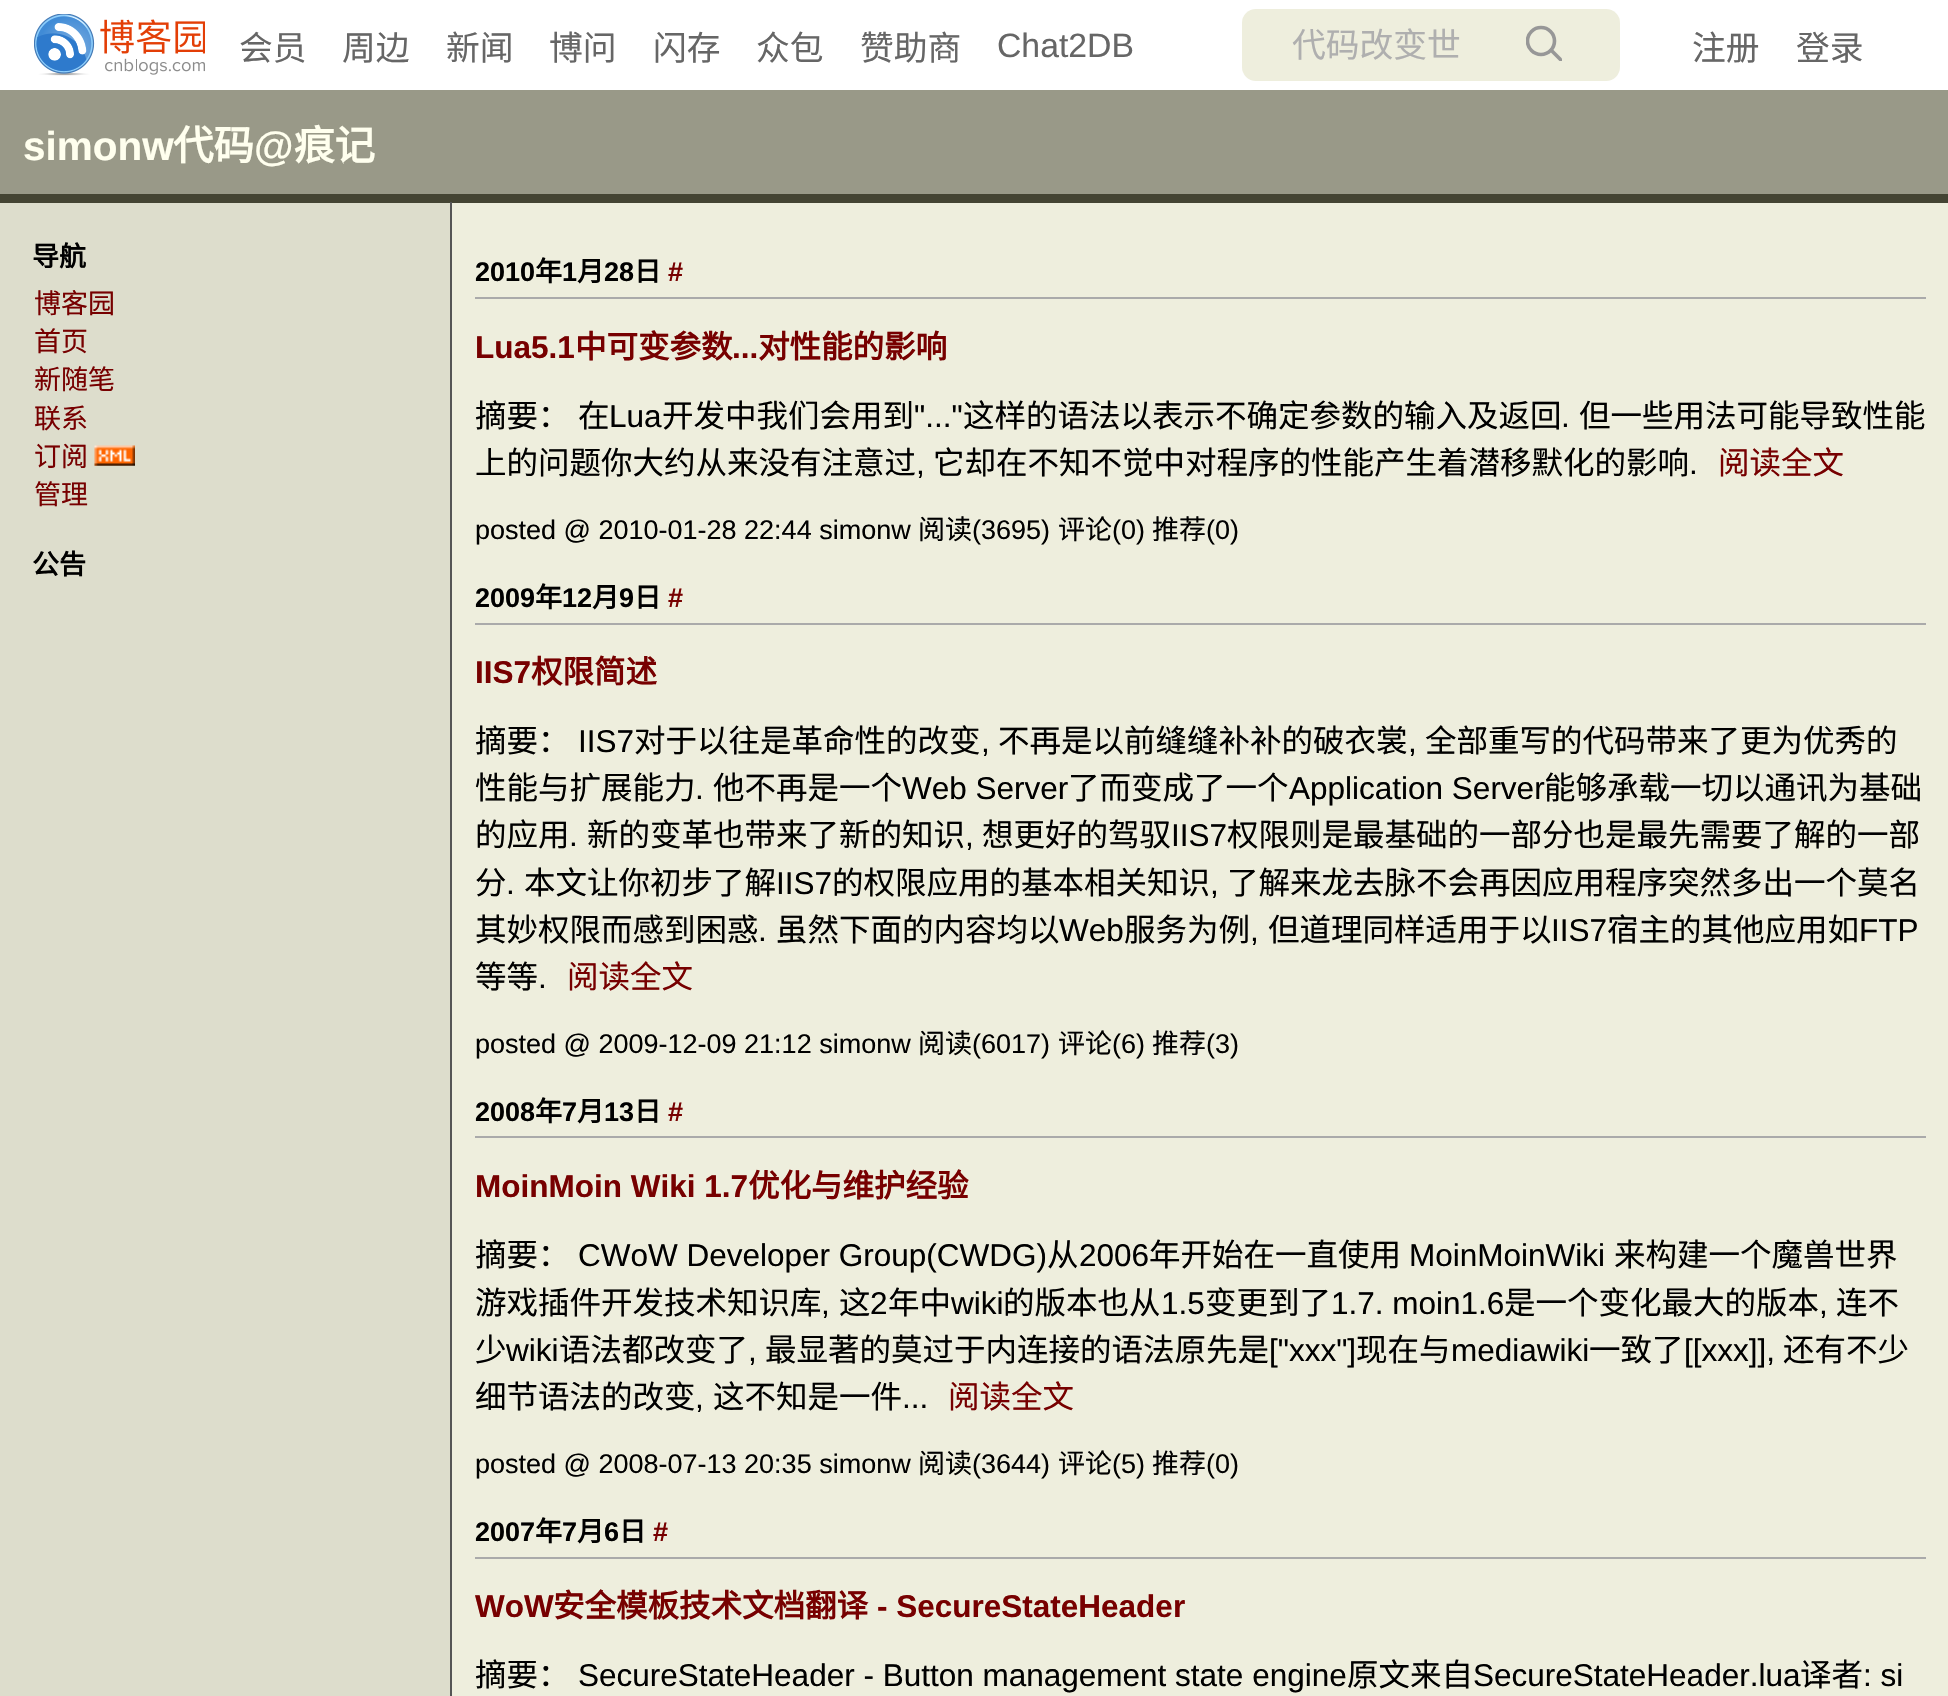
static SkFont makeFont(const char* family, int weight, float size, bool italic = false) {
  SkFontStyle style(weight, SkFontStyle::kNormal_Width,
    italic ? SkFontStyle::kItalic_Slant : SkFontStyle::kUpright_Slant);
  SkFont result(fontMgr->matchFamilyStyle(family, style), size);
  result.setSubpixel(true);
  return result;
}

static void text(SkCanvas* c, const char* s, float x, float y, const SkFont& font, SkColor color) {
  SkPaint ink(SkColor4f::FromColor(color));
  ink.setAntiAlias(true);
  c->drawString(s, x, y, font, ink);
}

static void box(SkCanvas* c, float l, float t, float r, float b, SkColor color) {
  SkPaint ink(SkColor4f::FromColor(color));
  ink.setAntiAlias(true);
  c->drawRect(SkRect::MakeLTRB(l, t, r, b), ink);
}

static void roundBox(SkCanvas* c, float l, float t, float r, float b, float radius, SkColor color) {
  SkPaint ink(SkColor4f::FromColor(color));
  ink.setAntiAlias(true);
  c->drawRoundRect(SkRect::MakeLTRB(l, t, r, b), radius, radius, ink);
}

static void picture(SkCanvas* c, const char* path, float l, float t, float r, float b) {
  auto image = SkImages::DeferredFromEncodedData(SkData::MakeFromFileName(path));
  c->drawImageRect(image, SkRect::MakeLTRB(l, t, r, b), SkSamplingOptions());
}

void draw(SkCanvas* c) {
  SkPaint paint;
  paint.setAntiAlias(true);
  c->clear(0xffddddcc);
  box(c, 0, 0, 1948, 90, 0xffffffff);
  picture(c, "img_01.png", 34, 14, 205, 76);
  SkFont face1 = makeFont("Noto Sans CJK SC", 400, 33.75f);
  text(c, "会员", 239, 60, face1, 0xff666666);
  text(c, "周边", 342, 60, face1, 0xff666666);
  text(c, "新闻", 446, 60, face1, 0xff666666);
  text(c, "博问", 549, 60, face1, 0xff666666);
  text(c, "闪存", 653, 60, face1, 0xff666666);
  text(c, "众包", 756, 60, face1, 0xff666666);
  text(c, "赞助商", 860, 60, face1, 0xff666666);
  SkFont face2 = makeFont("Liberation Sans", 400, 33.75f);
  text(c, "Chat2DB", 997, 57, face2, 0xff666666);
  roundBox(c, 1242, 9, 1620, 81, 14, 0xffeeeedd);
  text(c, "代码改变世", 1292, 57, face1, 0xffafafaf);
  c->save();
  c->clipRect(SkRect::MakeLTRB(1526, 25, 1562, 61));
  paint.setStyle(SkPaint::kStroke_Style);
  paint.setStrokeWidth(3.6f);
  paint.setColor(0xff979797);
  c->drawCircle(1541, 41, 13.5f, paint);
  c->drawPath(SkPathBuilder().moveTo(1550, 49).lineTo(1564, 63).detach(), paint);
  c->restore();
  text(c, "注册", 1692, 60, face1, 0xff666666);
  text(c, "登录", 1796, 60, face1, 0xff666666);
  box(c, 0, 90, 1948, 194, 0xff999988);
  box(c, 0, 194, 1948, 203, 0xff444433);
  SkFont face3 = makeFont("Liberation Sans", 700, 40.5f);
  text(c, "simonw", 23, 160, face3, 0xffffffee);
  SkFont face4 = makeFont("Noto Sans CJK SC", 700, 40.5f);
  text(c, "代码", 173, 160, face4, 0xffffffee);
  text(c, "@", 254, 160, face3, 0xffffffee);
  text(c, "痕记", 294, 160, face4, 0xffffffee);
  SkFont face5 = makeFont("Noto Sans CJK SC", 700, 27);
  text(c, "导航", 32, 266, face5, 0xff000000);
  SkFont face6 = makeFont("Noto Sans CJK SC", 400, 27);
  text(c, "博客园", 34, 313, face6, 0xff770000);
  text(c, "首页", 34, 351, face6, 0xff770000);
  text(c, "新随笔", 34, 389, face6, 0xff770000);
  text(c, "联系", 34, 428, face6, 0xff770000);
  text(c, "订阅", 34, 466, face6, 0xff770000);
  picture(c, "img_02.png", 94, 445, 135, 466);
  text(c, "管理", 34, 504, face6, 0xff770000);
  text(c, "公告", 32, 574, face5, 0xff000000);
  box(c, 452, 203, 1948, 1696, 0xffeeeedd);
  paint.setStyle(SkPaint::kFill_Style);
  paint.setColor(0xff555555);
  c->drawPath(SkPathBuilder().moveTo(450, 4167).lineTo(450, 202).lineTo(452, 202).lineTo(452, 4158).close().detach(), paint);
  box(c, 475, 297, 1926, 299, 0xffaaaaaa);
  SkFont face7 = makeFont("Liberation Sans", 700, 27);
  text(c, "2010", 475, 281, face7, 0xff000000);
  text(c, "年", 535, 281, face5, 0xff000000);
  text(c, "1", 562, 281, face7, 0xff000000);
  text(c, "月", 577, 281, face5, 0xff000000);
  text(c, "28", 604, 281, face7, 0xff000000);
  text(c, "日", 634, 281, face5, 0xff000000);
  text(c, "#", 668, 281, face7, 0xff770000);
  SkFont face8 = makeFont("Liberation Sans", 700, 31.5f);
  text(c, "Lua5.1", 475, 358, face8, 0xff770000);
  SkFont face9 = makeFont("Noto Sans CJK SC", 700, 31.5f);
  text(c, "中可变参数", 575, 358, face9, 0xff770000);
  text(c, "...", 732, 358, face8, 0xff770000);
  text(c, "对性能的影响", 758, 358, face9, 0xff770000);
  SkFont face10 = makeFont("Noto Sans CJK SC", 400, 31.5f);
  text(c, "摘要：", 475, 427, face10, 0xff000000);
  text(c, "在", 578, 427, face10, 0xff000000);
  SkFont face11 = makeFont("Liberation Sans", 400, 31.5f);
  text(c, "Lua", 609, 427, face11, 0xff000000);
  text(c, "开发中我们会用到", 662, 427, face10, 0xff000000);
  text(c, "\"...\"", 914, 427, face11, 0xff000000);
  text(c, "这样的语法以表示不确定参数的输入及返回", 963, 427, face10, 0xff000000);
  text(c, ".", 1561, 427, face11, 0xff000000);
  text(c, "但一些用法可能导致性能", 1579, 427, face10, 0xff000000);
  text(c, "上的问题你大约从来没有注意过", 475, 474, face10, 0xff000000);
  text(c, ",", 916, 474, face11, 0xff000000);
  text(c, "它却在不知不觉中对程序的性能产生着潜移默化的影响", 933, 474, face10, 0xff000000);
  text(c, ".", 1689, 474, face11, 0xff000000);
  text(c, "阅读全文", 1718, 474, face10, 0xff770000);
  SkFont face12 = makeFont("Liberation Sans", 400, 27);
  text(c, "posted @ 2010-01-28 22:44 simonw", 475, 539, face12, 0xff000000);
  text(c, "阅读", 918, 539, face6, 0xff000000);
  text(c, "(3695)", 972, 539, face12, 0xff000000);
  text(c, "评论", 1058, 539, face6, 0xff000000);
  text(c, "(0)", 1112, 539, face12, 0xff000000);
  text(c, "推荐", 1152, 539, face6, 0xff000000);
  text(c, "(0)", 1206, 539, face12, 0xff000000);
  box(c, 475, 623, 1926, 625, 0xffaaaaaa);
  text(c, "2009", 475, 607, face7, 0xff000000);
  text(c, "年", 535, 607, face5, 0xff000000);
  text(c, "12", 562, 607, face7, 0xff000000);
  text(c, "月", 592, 607, face5, 0xff000000);
  text(c, "9", 619, 607, face7, 0xff000000);
  text(c, "日", 634, 607, face5, 0xff000000);
  text(c, "#", 668, 607, face7, 0xff770000);
  text(c, "IIS7", 475, 683, face8, 0xff770000);
  text(c, "权限简述", 531, 683, face9, 0xff770000);
  text(c, "摘要：", 475, 752, face10, 0xff000000);
  text(c, "IIS7", 578, 752, face11, 0xff000000);
  text(c, "对于以往是革命性的改变", 634, 752, face10, 0xff000000);
  text(c, ",", 981, 752, face11, 0xff000000);
  text(c, "不再是以前缝缝补补的破衣裳", 998, 752, face10, 0xff000000);
  text(c, ",", 1408, 752, face11, 0xff000000);
  text(c, "全部重写的代码带来了更为优秀的", 1425, 752, face10, 0xff000000);
  text(c, "性能与扩展能力", 475, 799, face10, 0xff000000);
  text(c, ".", 695, 799, face11, 0xff000000);
  text(c, "他不再是一个", 713, 799, face10, 0xff000000);
  text(c, "Web Server", 902, 799, face11, 0xff000000);
  text(c, "了而变成了一个", 1068, 799, face10, 0xff000000);
  text(c, "Application Server", 1289, 799, face11, 0xff000000);
  text(c, "能够承载一切以通讯为基础", 1544, 799, face10, 0xff000000);
  text(c, "的应用", 475, 846, face10, 0xff000000);
  text(c, ".", 569, 846, face11, 0xff000000);
  text(c, "新的变革也带来了新的知识", 587, 846, face10, 0xff000000);
  text(c, ",", 965, 846, face11, 0xff000000);
  text(c, "想更好的驾驭", 982, 846, face10, 0xff000000);
  text(c, "IIS7", 1171, 846, face11, 0xff000000);
  text(c, "权限则是最基础的一部分也是最先需要了解的一部", 1227, 846, face10, 0xff000000);
  text(c, "分", 475, 894, face10, 0xff000000);
  text(c, ".", 506, 894, face11, 0xff000000);
  text(c, "本文让你初步了解", 524, 894, face10, 0xff000000);
  text(c, "IIS7", 776, 894, face11, 0xff000000);
  text(c, "的权限应用的基本相关知识", 832, 894, face10, 0xff000000);
  text(c, ",", 1210, 894, face11, 0xff000000);
  text(c, "了解来龙去脉不会再因应用程序突然多出一个莫名", 1227, 894, face10, 0xff000000);
  text(c, "其妙权限而感到困惑", 475, 941, face10, 0xff000000);
  text(c, ".", 758, 941, face11, 0xff000000);
  text(c, "虽然下面的内容均以", 776, 941, face10, 0xff000000);
  text(c, "Web", 1059, 941, face11, 0xff000000);
  text(c, "服务为例", 1124, 941, face10, 0xff000000);
  text(c, ",", 1250, 941, face11, 0xff000000);
  text(c, "但道理同样适用于以", 1268, 941, face10, 0xff000000);
  text(c, "IIS7", 1551, 941, face11, 0xff000000);
  text(c, "宿主的其他应用如", 1607, 941, face10, 0xff000000);
  text(c, "FTP", 1859, 941, face11, 0xff000000);
  text(c, "等等", 475, 988, face10, 0xff000000);
  text(c, ".", 538, 988, face11, 0xff000000);
  text(c, "阅读全文", 567, 988, face10, 0xff770000);
  text(c, "posted @ 2009-12-09 21:12 simonw", 475, 1053, face12, 0xff000000);
  text(c, "阅读", 918, 1053, face6, 0xff000000);
  text(c, "(6017)", 972, 1053, face12, 0xff000000);
  text(c, "评论", 1058, 1053, face6, 0xff000000);
  text(c, "(6)", 1112, 1053, face12, 0xff000000);
  text(c, "推荐", 1152, 1053, face6, 0xff000000);
  text(c, "(3)", 1206, 1053, face12, 0xff000000);
  box(c, 475, 1136, 1926, 1138, 0xffaaaaaa);
  text(c, "2008", 475, 1121, face7, 0xff000000);
  text(c, "年", 535, 1121, face5, 0xff000000);
  text(c, "7", 562, 1121, face7, 0xff000000);
  text(c, "月", 577, 1121, face5, 0xff000000);
  text(c, "13", 604, 1121, face7, 0xff000000);
  text(c, "日", 634, 1121, face5, 0xff000000);
  text(c, "#", 668, 1121, face7, 0xff770000);
  text(c, "MoinMoin Wiki 1.7", 475, 1197, face8, 0xff770000);
  text(c, "优化与维护经验", 748, 1197, face9, 0xff770000);
  text(c, "摘要：", 475, 1266, face10, 0xff000000);
  text(c, "CWoW Developer Group(CWDG)", 578, 1266, face11, 0xff000000);
  text(c, "从", 1047, 1266, face10, 0xff000000);
  text(c, "2006", 1079, 1266, face11, 0xff000000);
  text(c, "年开始在一直使用", 1149, 1266, face10, 0xff000000);
  text(c, "MoinMoinWiki", 1409, 1266, face11, 0xff000000);
  text(c, "来构建一个魔兽世界", 1614, 1266, face10, 0xff000000);
  text(c, "游戏插件开发技术知识库", 475, 1314, face10, 0xff000000);
  text(c, ",", 821, 1314, face11, 0xff000000);
  text(c, "这", 839, 1314, face10, 0xff000000);
  text(c, "2", 870, 1314, face11, 0xff000000);
  text(c, "年中", 888, 1314, face10, 0xff000000);
  text(c, "wiki", 951, 1314, face11, 0xff000000);
  text(c, "的版本也从", 1003, 1314, face10, 0xff000000);
  text(c, "1.5", 1161, 1314, face11, 0xff000000);
  text(c, "变更到了", 1205, 1314, face10, 0xff000000);
  text(c, "1.7. moin1.6", 1331, 1314, face11, 0xff000000);
  text(c, "是一个变化最大的版本", 1504, 1314, face10, 0xff000000);
  text(c, ",", 1819, 1314, face11, 0xff000000);
  text(c, "连不", 1836, 1314, face10, 0xff000000);
  text(c, "少", 475, 1361, face10, 0xff000000);
  text(c, "wiki", 506, 1361, face11, 0xff000000);
  text(c, "语法都改变了", 559, 1361, face10, 0xff000000);
  text(c, ",", 748, 1361, face11, 0xff000000);
  text(c, "最显著的莫过于内连接的语法原先是", 765, 1361, face10, 0xff000000);
  text(c, "[\"xxx\"]", 1269, 1361, face11, 0xff000000);
  text(c, "现在与", 1356, 1361, face10, 0xff000000);
  text(c, "mediawiki", 1451, 1361, face11, 0xff000000);
  text(c, "一致了", 1589, 1361, face10, 0xff000000);
  text(c, "[[xxx]],", 1684, 1361, face11, 0xff000000);
  text(c, "还有不少", 1783, 1361, face10, 0xff000000);
  text(c, "细节语法的改变", 475, 1408, face10, 0xff000000);
  text(c, ",", 695, 1408, face11, 0xff000000);
  text(c, "这不知是一件", 713, 1408, face10, 0xff000000);
  text(c, "...", 902, 1408, face11, 0xff000000);
  text(c, "阅读全文", 948, 1408, face10, 0xff770000);
  text(c, "posted @ 2008-07-13 20:35 simonw", 475, 1473, face12, 0xff000000);
  text(c, "阅读", 918, 1473, face6, 0xff000000);
  text(c, "(3644)", 972, 1473, face12, 0xff000000);
  text(c, "评论", 1058, 1473, face6, 0xff000000);
  text(c, "(5)", 1112, 1473, face12, 0xff000000);
  text(c, "推荐", 1152, 1473, face6, 0xff000000);
  text(c, "(0)", 1206, 1473, face12, 0xff000000);
  box(c, 475, 1557, 1926, 1559, 0xffaaaaaa);
  text(c, "2007", 475, 1541, face7, 0xff000000);
  text(c, "年", 535, 1541, face5, 0xff000000);
  text(c, "7", 562, 1541, face7, 0xff000000);
  text(c, "月", 577, 1541, face5, 0xff000000);
  text(c, "6", 604, 1541, face7, 0xff000000);
  text(c, "日", 619, 1541, face5, 0xff000000);
  text(c, "#", 653, 1541, face7, 0xff770000);
  text(c, "WoW", 475, 1617, face8, 0xff770000);
  text(c, "安全模板技术文档翻译", 553, 1617, face9, 0xff770000);
  text(c, "- SecureStateHeader", 877, 1617, face8, 0xff770000);
  text(c, "摘要：", 475, 1686, face10, 0xff000000);
  text(c, "SecureStateHeader - Button management state engine", 578, 1686, face11, 0xff000000);
  text(c, "原文来自", 1347, 1686, face10, 0xff000000);
  text(c, "SecureStateHeader.lua", 1473, 1686, face11, 0xff000000);
  text(c, "译者", 1800, 1686, face10, 0xff000000);
  text(c, ": si", 1863, 1686, face11, 0xff000000);
}
